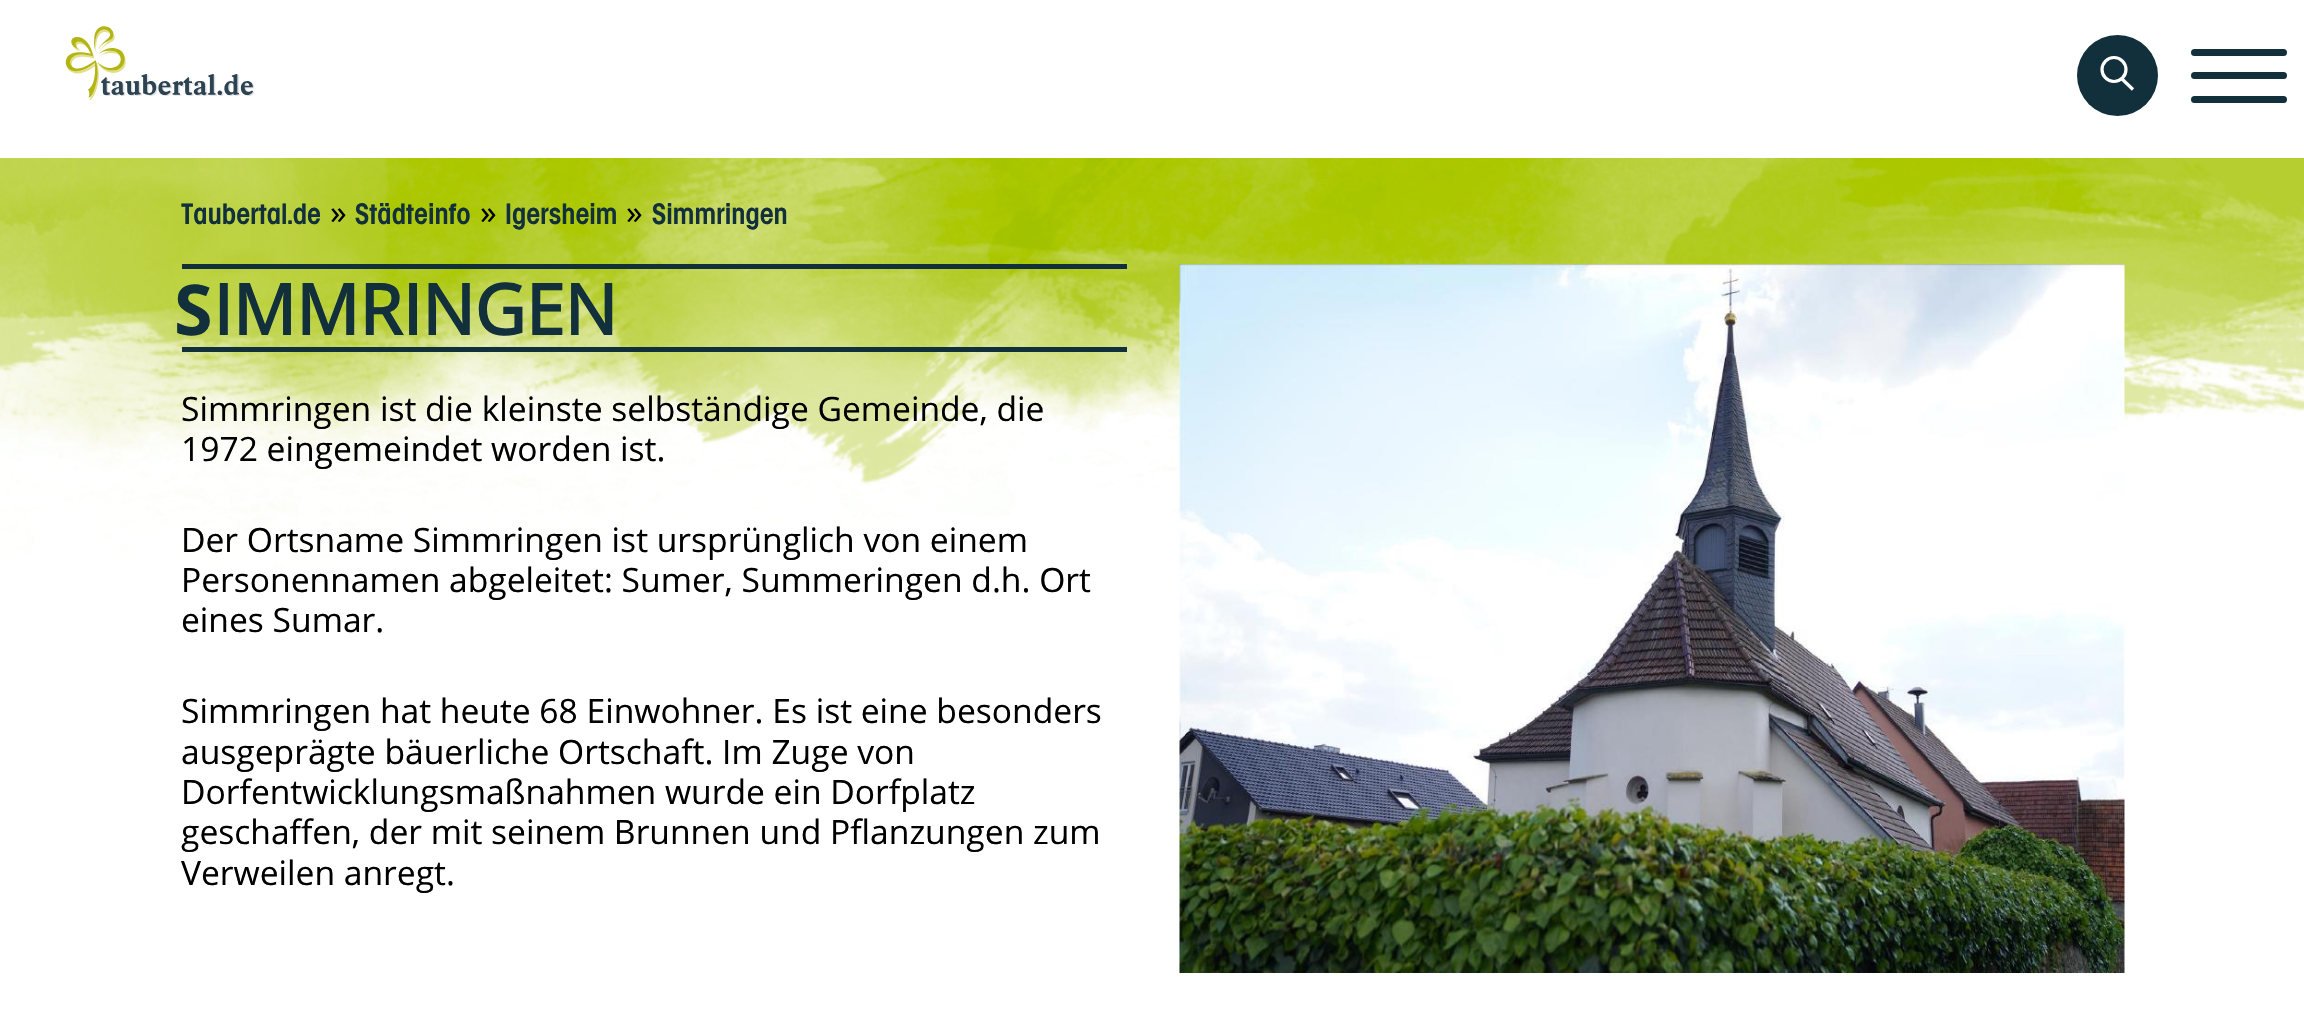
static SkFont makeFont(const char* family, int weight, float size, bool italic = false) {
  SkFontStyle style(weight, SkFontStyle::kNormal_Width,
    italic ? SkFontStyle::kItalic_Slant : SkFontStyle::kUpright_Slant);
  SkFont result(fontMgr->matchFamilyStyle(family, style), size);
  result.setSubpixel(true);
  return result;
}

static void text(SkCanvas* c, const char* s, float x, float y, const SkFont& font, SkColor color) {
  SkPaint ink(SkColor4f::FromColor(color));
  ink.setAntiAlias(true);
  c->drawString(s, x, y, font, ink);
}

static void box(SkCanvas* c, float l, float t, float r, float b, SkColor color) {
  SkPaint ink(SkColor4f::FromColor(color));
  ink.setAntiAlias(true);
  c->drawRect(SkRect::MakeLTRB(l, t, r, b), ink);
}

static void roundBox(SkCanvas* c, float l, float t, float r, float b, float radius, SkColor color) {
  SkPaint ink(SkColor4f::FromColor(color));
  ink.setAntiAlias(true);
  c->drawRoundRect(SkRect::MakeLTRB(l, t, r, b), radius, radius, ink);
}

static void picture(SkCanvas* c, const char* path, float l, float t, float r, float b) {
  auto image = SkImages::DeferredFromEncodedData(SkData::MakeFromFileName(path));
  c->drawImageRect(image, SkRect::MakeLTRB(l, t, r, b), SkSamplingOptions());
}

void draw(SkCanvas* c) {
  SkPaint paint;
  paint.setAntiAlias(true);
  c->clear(0xffffffff);
  picture(c, "img_01.png", 65, 26, 255, 100);
  paint.setColor(0xff11303c);
  c->drawCircle(2117.5f, 75.5f, 40.5f, paint);
  paint.setStyle(SkPaint::kStroke_Style);
  paint.setStrokeWidth(3.2f);
  paint.setColor(0xffffffff);
  c->drawCircle(2114, 69.5f, 12, paint);
  c->drawPath(SkPathBuilder().moveTo(2122, 79).lineTo(2133, 89.5f).detach(), paint);
  roundBox(c, 2191, 72, 2287, 79, 3.5f, 0xff11303c);
  roundBox(c, 2191, 49, 2287, 56, 3.5f, 0xff11303c);
  roundBox(c, 2191, 96, 2287, 103, 3.5f, 0xff11303c);
  picture(c, "img_02.png", 0, 158, 2304, 568);
  SkFont face1 = makeFont("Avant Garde", 600, 28);
  text(c, "Taubertal.de", 181, 224, face1, 0xff11303c);
  SkFont face2 = makeFont("Open Sans", 400, 33.6f);
  text(c, "»", 330, 224, face2, 0xff000000);
  text(c, "Städteinfo", 355, 224, face1, 0xff11303c);
  text(c, "»", 480, 224, face2, 0xff000000);
  text(c, "Igersheim", 505, 224, face1, 0xff11303c);
  text(c, "»", 626, 224, face2, 0xff000000);
  text(c, "Simmringen", 652, 224, face1, 0xff11303c);
  box(c, 182, 264, 1127, 269, 0xff11303c);
  box(c, 182, 347, 1127, 352, 0xff11303c);
  SkFont face3 = makeFont("Noto Sans", 700, 70);
  text(c, "S", 174, 335, face3, 0xff11303c);
  SkFont face4 = makeFont("Open Sans", 700, 70);
  text(c, "IMMRINGEN", 213, 335, face4, 0xff11303c);
  text(c, "Simmringen ist die kleinste selbständige Gemeinde, die", 181, 421, face2, 0xff000000);
  text(c, "1972 eingemeindet worden ist.", 181, 461, face2, 0xff000000);
  text(c, "Der Ortsname Simmringen ist ursprünglich von einem", 181, 552, face2, 0xff000000);
  text(c, "Personennamen abgeleitet: Sumer, Summeringen d.h. Ort", 181, 592, face2, 0xff000000);
  text(c, "eines Sumar.", 181, 632, face2, 0xff000000);
  text(c, "Simmringen hat heute 68 Einwohner. Es ist eine besonders", 181, 723, face2, 0xff000000);
  text(c, "ausgeprägte bäuerliche Ortschaft. Im Zuge von", 181, 764, face2, 0xff000000);
  text(c, "Dorfentwicklungsmaßnahmen wurde ein Dorfplatz", 181, 804, face2, 0xff000000);
  text(c, "geschaffen, der mit seinem Brunnen und Pflanzungen zum", 181, 844, face2, 0xff000000);
  text(c, "Verweilen anregt.", 181, 885, face2, 0xff000000);
  picture(c, "img_03.png", 1179, 264, 2125, 973);
}
